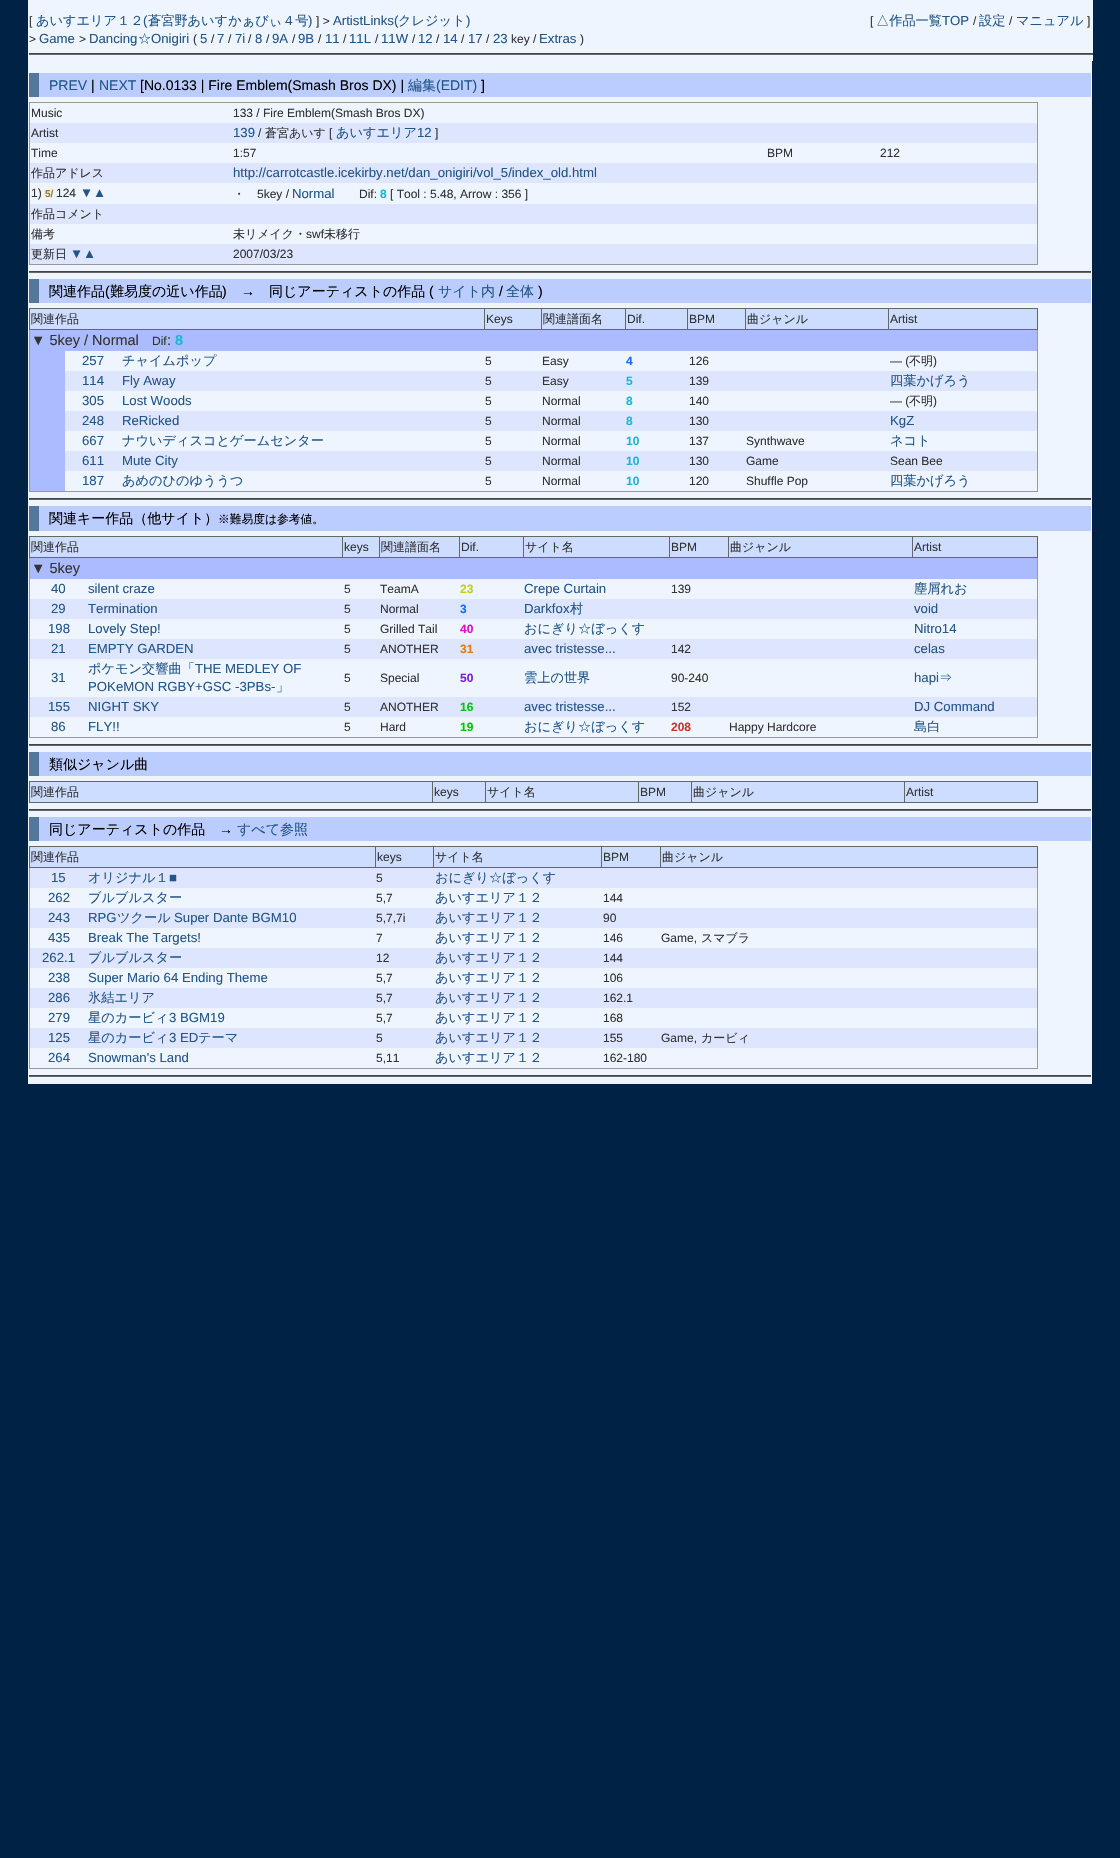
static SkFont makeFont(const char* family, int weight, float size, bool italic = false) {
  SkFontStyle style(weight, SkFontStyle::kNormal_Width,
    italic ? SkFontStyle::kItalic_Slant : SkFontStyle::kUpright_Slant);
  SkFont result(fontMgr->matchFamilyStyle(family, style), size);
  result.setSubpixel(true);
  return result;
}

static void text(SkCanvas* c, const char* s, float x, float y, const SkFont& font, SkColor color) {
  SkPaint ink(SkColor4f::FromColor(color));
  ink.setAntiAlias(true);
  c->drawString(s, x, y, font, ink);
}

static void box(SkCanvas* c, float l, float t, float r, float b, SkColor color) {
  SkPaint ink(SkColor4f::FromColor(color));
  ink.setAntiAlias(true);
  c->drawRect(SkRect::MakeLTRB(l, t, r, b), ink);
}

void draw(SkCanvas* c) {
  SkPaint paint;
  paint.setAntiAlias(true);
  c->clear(0xff002244);
  box(c, 28, 0, 1092, 1084, 0xffeef5ff);
  box(c, 1092, 0, 1093, 61, 0xffeef5ff);
  SkFont face1 = makeFont("Liberation Sans", 400, 12);
  text(c, "[", 29, 25, face1, 0xff333333);
  SkFont face2 = makeFont("WenQuanYi Zen Hei", 500, 13.2f);
  text(c, "あいすエリア１２", 36, 25, face2, 0xff225588);
  SkFont face3 = makeFont("Liberation Sans", 400, 13.2f);
  text(c, "(", 143, 25, face3, 0xff225588);
  text(c, "蒼宮野あいすかぁびぃ４号", 148, 25, face2, 0xff225588);
  text(c, ")", 308, 25, face3, 0xff225588);
  text(c, "] >", 316, 25, face1, 0xff333333);
  text(c, "ArtistLinks(", 333, 25, face3, 0xff225588);
  text(c, "クレジット", 398, 25, face2, 0xff225588);
  text(c, ")", 466, 25, face3, 0xff225588);
  text(c, ">", 29, 43, face1, 0xff333333);
  text(c, "Game", 39, 43, face3, 0xff225588);
  text(c, ">", 79, 43, face1, 0xff333333);
  text(c, "Dancing", 89, 43, face3, 0xff225588);
  text(c, "☆", 138, 43, face2, 0xff225588);
  text(c, "Onigiri", 151, 43, face3, 0xff225588);
  text(c, "(", 193, 43, face1, 0xff333333);
  text(c, "5", 200, 43, face3, 0xff225588);
  text(c, "/", 211, 43, face1, 0xff333333);
  text(c, "7", 217, 43, face3, 0xff225588);
  text(c, "/", 228, 43, face1, 0xff333333);
  text(c, "7i", 235, 43, face3, 0xff225588);
  text(c, "/", 248, 43, face1, 0xff333333);
  text(c, "8", 255, 43, face3, 0xff225588);
  text(c, "/", 266, 43, face1, 0xff333333);
  text(c, "9A", 272, 43, face3, 0xff225588);
  text(c, "/", 292, 43, face1, 0xff333333);
  text(c, "9B", 298, 43, face3, 0xff225588);
  text(c, "/", 318, 43, face1, 0xff333333);
  text(c, "11", 325, 43, face3, 0xff225588);
  text(c, "/", 343, 43, face1, 0xff333333);
  text(c, "11L", 349, 43, face3, 0xff225588);
  text(c, "/", 375, 43, face1, 0xff333333);
  text(c, "11W", 381, 43, face3, 0xff225588);
  text(c, "/", 412, 43, face1, 0xff333333);
  text(c, "12", 418, 43, face3, 0xff225588);
  text(c, "/", 436, 43, face1, 0xff333333);
  text(c, "14", 443, 43, face3, 0xff225588);
  text(c, "/", 461, 43, face1, 0xff333333);
  text(c, "17", 468, 43, face3, 0xff225588);
  text(c, "/", 486, 43, face1, 0xff333333);
  text(c, "23", 493, 43, face3, 0xff225588);
  text(c, "key /", 511, 43, face1, 0xff333333);
  text(c, "Extras", 539, 43, face3, 0xff225588);
  text(c, ")", 580, 43, face1, 0xff333333);
  text(c, "[", 870, 25, face1, 0xff333333);
  text(c, "△作品一覧", 876, 25, face2, 0xff225588);
  text(c, "TOP", 942, 25, face3, 0xff225588);
  text(c, "/", 973, 25, face1, 0xff333333);
  text(c, "設定", 979, 25, face2, 0xff225588);
  text(c, "/", 1009, 25, face1, 0xff333333);
  text(c, "マニュアル", 1016, 25, face2, 0xff225588);
  text(c, "]", 1087, 25, face1, 0xff333333);
  box(c, 29, 54, 1093, 55, 0xff666666);
  box(c, 29, 53, 1093, 54, 0xff444444);
  box(c, 39, 73, 1091, 97, 0xffbbccff);
  box(c, 29, 73, 39, 97, 0xff557799);
  SkFont face4 = makeFont("Liberation Sans", 400, 14);
  text(c, "PREV", 49, 90, face4, 0xff225588);
  text(c, "|", 91, 90, face4, 0xff000000);
  text(c, "NEXT", 99, 90, face4, 0xff225588);
  text(c, "[No.0133 | Fire Emblem(Smash Bros DX) |", 140, 90, face4, 0xff000000);
  SkFont face5 = makeFont("WenQuanYi Zen Hei", 500, 14);
  text(c, "編集", 408, 90, face5, 0xff225588);
  text(c, "(EDIT)", 436, 90, face4, 0xff225588);
  text(c, "]", 481, 90, face4, 0xff000000);
  box(c, 29, 102, 1038, 103, 0xff999999);
  box(c, 1037, 102, 1038, 265, 0xff999999);
  box(c, 29, 264, 1038, 265, 0xff999999);
  box(c, 29, 102, 30, 265, 0xff999999);
  text(c, "Music", 31, 117, face1, 0xff333333);
  text(c, "133 / Fire Emblem(Smash Bros DX)", 233, 117, face1, 0xff333333);
  box(c, 30, 123, 1037, 143, 0xffdde5ff);
  text(c, "Artist", 31, 137, face1, 0xff333333);
  text(c, "139", 233, 137, face3, 0xff225588);
  text(c, "/", 258, 137, face1, 0xff333333);
  SkFont face6 = makeFont("WenQuanYi Zen Hei", 500, 12);
  text(c, "蒼宮あいす", 265, 137, face6, 0xff333333);
  text(c, "[", 329, 137, face1, 0xff333333);
  text(c, "あいすエリア", 336, 137, face2, 0xff225588);
  text(c, "12", 417, 137, face3, 0xff225588);
  text(c, "]", 435, 137, face1, 0xff333333);
  text(c, "Time", 31, 157, face1, 0xff333333);
  text(c, "1:57", 233, 157, face1, 0xff333333);
  text(c, "BPM", 767, 157, face1, 0xff333333);
  text(c, "212", 880, 157, face1, 0xff333333);
  box(c, 30, 163, 1037, 183, 0xffdde5ff);
  text(c, "作品アドレス", 31, 177, face6, 0xff333333);
  text(c, "http://carrotcastle.icekirby.net/dan_onigiri/vol_5/index_old.html", 233, 177, face3, 0xff225588);
  text(c, "1)", 31, 197, face1, 0xff333333);
  SkFont face7 = makeFont("Liberation Sans", 700, 10);
  text(c, "5/", 45, 197, face7, 0xffaa7722);
  text(c, "124", 56, 197, face1, 0xff333333);
  text(c, "▼▲", 80, 197, face3, 0xff225588);
  text(c, "・", 233, 198, face6, 0xff333333);
  text(c, "5key /", 257, 198, face1, 0xff333333);
  text(c, "Normal", 292, 198, face3, 0xff225588);
  text(c, "Dif:", 359, 198, face1, 0xff333333);
  SkFont face8 = makeFont("Liberation Sans", 700, 12);
  text(c, "8", 380, 198, face8, 0xff1bb7d1);
  text(c, "[ Tool : 5.48, Arrow : 356 ]", 390, 198, face1, 0xff333333);
  box(c, 30, 204, 1037, 224, 0xffdde5ff);
  text(c, "作品コメント", 31, 218, face6, 0xff333333);
  text(c, "備考", 31, 238, face6, 0xff333333);
  text(c, "未リメイク・", 233, 238, face6, 0xff333333);
  text(c, "swf", 306, 238, face1, 0xff333333);
  text(c, "未移行", 324, 238, face6, 0xff333333);
  box(c, 30, 244, 1037, 264, 0xffdde5ff);
  text(c, "更新日", 31, 258, face6, 0xff333333);
  text(c, "▼▲", 70, 258, face3, 0xff225588);
  text(c, "2007/03/23", 233, 258, face1, 0xff333333);
  box(c, 29, 272, 1091, 273, 0xff666666);
  box(c, 29, 271, 1091, 272, 0xff444444);
  box(c, 39, 279, 1091, 303, 0xffbbccff);
  box(c, 29, 279, 39, 303, 0xff557799);
  text(c, "関連作品", 49, 296, face5, 0xff000000);
  text(c, "(", 105, 296, face4, 0xff000000);
  text(c, "難易度の近い作品", 110, 296, face5, 0xff000000);
  text(c, ")", 222, 296, face4, 0xff000000);
  text(c, "→", 241, 296, face4, 0xff000000);
  text(c, "同じアーティストの作品", 269, 296, face5, 0xff000000);
  text(c, "(", 429, 296, face4, 0xff000000);
  text(c, "サイト内", 438, 296, face5, 0xff225588);
  text(c, "/", 499, 296, face4, 0xff000000);
  text(c, "全体", 506, 296, face5, 0xff225588);
  text(c, ")", 538, 296, face4, 0xff000000);
  box(c, 1037, 330, 1038, 492, 0xff999999);
  box(c, 29, 491, 1038, 492, 0xff999999);
  box(c, 29, 330, 30, 492, 0xff999999);
  box(c, 30, 309, 484, 329, 0xffccddff);
  box(c, 888, 308, 1038, 309, 0xff666666);
  box(c, 1037, 308, 1038, 330, 0xff666666);
  box(c, 888, 329, 1038, 330, 0xff666666);
  box(c, 888, 308, 889, 330, 0xff666666);
  box(c, 745, 308, 889, 309, 0xff666666);
  box(c, 745, 329, 889, 330, 0xff666666);
  box(c, 745, 308, 746, 330, 0xff666666);
  box(c, 687, 308, 746, 309, 0xff666666);
  box(c, 687, 329, 746, 330, 0xff666666);
  box(c, 687, 308, 688, 330, 0xff666666);
  box(c, 625, 308, 688, 309, 0xff666666);
  box(c, 625, 329, 688, 330, 0xff666666);
  box(c, 625, 308, 626, 330, 0xff666666);
  box(c, 541, 308, 626, 309, 0xff666666);
  box(c, 541, 329, 626, 330, 0xff666666);
  box(c, 541, 308, 542, 330, 0xff666666);
  box(c, 484, 308, 542, 309, 0xff666666);
  box(c, 484, 329, 542, 330, 0xff666666);
  box(c, 484, 308, 485, 330, 0xff666666);
  box(c, 29, 308, 485, 309, 0xff666666);
  box(c, 29, 329, 485, 330, 0xff666666);
  box(c, 29, 308, 30, 330, 0xff666666);
  text(c, "関連作品", 31, 323, face6, 0xff333333);
  box(c, 485, 309, 541, 329, 0xffccddff);
  text(c, "Keys", 486, 323, face1, 0xff333333);
  box(c, 542, 309, 625, 329, 0xffccddff);
  text(c, "関連譜面名", 543, 323, face6, 0xff333333);
  box(c, 626, 309, 687, 329, 0xffccddff);
  text(c, "Dif.", 627, 323, face1, 0xff333333);
  box(c, 688, 309, 745, 329, 0xffccddff);
  text(c, "BPM", 689, 323, face1, 0xff333333);
  box(c, 746, 309, 888, 329, 0xffccddff);
  text(c, "曲ジャンル", 747, 323, face6, 0xff333333);
  box(c, 889, 309, 1037, 329, 0xffccddff);
  text(c, "Artist", 890, 323, face1, 0xff333333);
  box(c, 30, 330, 1037, 351, 0xffaabbff);
  SkFont face9 = makeFont("Liberation Sans", 400, 14.5f);
  text(c, "▼ 5key / Normal", 31, 345, face9, 0xff333333);
  text(c, "Dif", 152, 345, face1, 0xff333333);
  text(c, ":", 167, 345, face9, 0xff333333);
  SkFont face10 = makeFont("Liberation Sans", 700, 14.5f);
  text(c, "8", 175, 345, face10, 0xff1bb7d1);
  box(c, 30, 351, 65, 491, 0xffaabbff);
  text(c, "257", 82, 365, face3, 0xff225588);
  text(c, "チャイムポップ", 122, 365, face2, 0xff225588);
  text(c, "5", 485, 365, face1, 0xff333333);
  text(c, "Easy", 542, 365, face1, 0xff333333);
  text(c, "4", 626, 365, face8, 0xff176aff);
  text(c, "126", 689, 365, face1, 0xff333333);
  text(c, "― (", 890, 365, face1, 0xff333333);
  text(c, "不明", 909, 365, face6, 0xff333333);
  text(c, ")", 933, 365, face1, 0xff333333);
  box(c, 65, 371, 1037, 391, 0xffdde5ff);
  text(c, "114", 82, 385, face3, 0xff225588);
  text(c, "Fly Away", 122, 385, face3, 0xff225588);
  text(c, "5", 485, 385, face1, 0xff333333);
  text(c, "Easy", 542, 385, face1, 0xff333333);
  text(c, "5", 626, 385, face8, 0xff1bb7d1);
  text(c, "139", 689, 385, face1, 0xff333333);
  text(c, "四葉かげろう", 890, 385, face2, 0xff225588);
  text(c, "305", 82, 405, face3, 0xff225588);
  text(c, "Lost Woods", 122, 405, face3, 0xff225588);
  text(c, "5", 485, 405, face1, 0xff333333);
  text(c, "Normal", 542, 405, face1, 0xff333333);
  text(c, "8", 626, 405, face8, 0xff1bb7d1);
  text(c, "140", 689, 405, face1, 0xff333333);
  text(c, "― (", 890, 405, face1, 0xff333333);
  text(c, "不明", 909, 405, face6, 0xff333333);
  text(c, ")", 933, 405, face1, 0xff333333);
  box(c, 65, 411, 1037, 431, 0xffdde5ff);
  text(c, "248", 82, 425, face3, 0xff225588);
  text(c, "ReRicked", 122, 425, face3, 0xff225588);
  text(c, "5", 485, 425, face1, 0xff333333);
  text(c, "Normal", 542, 425, face1, 0xff333333);
  text(c, "8", 626, 425, face8, 0xff1bb7d1);
  text(c, "130", 689, 425, face1, 0xff333333);
  text(c, "KgZ", 890, 425, face3, 0xff225588);
  text(c, "667", 82, 445, face3, 0xff225588);
  text(c, "ナウいディスコとゲームセンター", 122, 445, face2, 0xff225588);
  text(c, "5", 485, 445, face1, 0xff333333);
  text(c, "Normal", 542, 445, face1, 0xff333333);
  text(c, "10", 626, 445, face8, 0xff1bb7d1);
  text(c, "137", 689, 445, face1, 0xff333333);
  text(c, "Synthwave", 746, 445, face1, 0xff333333);
  text(c, "ネコト", 890, 445, face2, 0xff225588);
  box(c, 65, 451, 1037, 471, 0xffdde5ff);
  text(c, "611", 82, 465, face3, 0xff225588);
  text(c, "Mute City", 122, 465, face3, 0xff225588);
  text(c, "5", 485, 465, face1, 0xff333333);
  text(c, "Normal", 542, 465, face1, 0xff333333);
  text(c, "10", 626, 465, face8, 0xff1bb7d1);
  text(c, "130", 689, 465, face1, 0xff333333);
  text(c, "Game", 746, 465, face1, 0xff333333);
  text(c, "Sean Bee", 890, 465, face1, 0xff333333);
  text(c, "187", 82, 485, face3, 0xff225588);
  text(c, "あめのひのゆううつ", 122, 485, face2, 0xff225588);
  text(c, "5", 485, 485, face1, 0xff333333);
  text(c, "Normal", 542, 485, face1, 0xff333333);
  text(c, "10", 626, 485, face8, 0xff1bb7d1);
  text(c, "120", 689, 485, face1, 0xff333333);
  text(c, "Shuffle Pop", 746, 485, face1, 0xff333333);
  text(c, "四葉かげろう", 890, 485, face2, 0xff225588);
  box(c, 29, 499, 1091, 500, 0xff666666);
  box(c, 29, 498, 1091, 499, 0xff444444);
  box(c, 39, 506, 1091, 531, 0xffbbccff);
  box(c, 29, 506, 39, 531, 0xff557799);
  text(c, "関連キー作品（他サイト）", 49, 523, face5, 0xff000000);
  SkFont face11 = makeFont("WenQuanYi Zen Hei", 500, 11.75f);
  text(c, "※難易度は参考値。", 218, 523, face11, 0xff000000);
  box(c, 1037, 558, 1038, 738, 0xff999999);
  box(c, 29, 737, 1038, 738, 0xff999999);
  box(c, 29, 558, 30, 738, 0xff999999);
  box(c, 30, 537, 342, 557, 0xffccddff);
  box(c, 912, 536, 1038, 537, 0xff666666);
  box(c, 1037, 536, 1038, 558, 0xff666666);
  box(c, 912, 557, 1038, 558, 0xff666666);
  box(c, 912, 536, 913, 558, 0xff666666);
  box(c, 728, 536, 913, 537, 0xff666666);
  box(c, 728, 557, 913, 558, 0xff666666);
  box(c, 728, 536, 729, 558, 0xff666666);
  box(c, 669, 536, 729, 537, 0xff666666);
  box(c, 669, 557, 729, 558, 0xff666666);
  box(c, 669, 536, 670, 558, 0xff666666);
  box(c, 523, 536, 670, 537, 0xff666666);
  box(c, 523, 557, 670, 558, 0xff666666);
  box(c, 523, 536, 524, 558, 0xff666666);
  box(c, 459, 536, 524, 537, 0xff666666);
  box(c, 459, 557, 524, 558, 0xff666666);
  box(c, 459, 536, 460, 558, 0xff666666);
  box(c, 379, 536, 460, 537, 0xff666666);
  box(c, 379, 557, 460, 558, 0xff666666);
  box(c, 379, 536, 380, 558, 0xff666666);
  box(c, 342, 536, 380, 537, 0xff666666);
  box(c, 342, 557, 380, 558, 0xff666666);
  box(c, 342, 536, 343, 558, 0xff666666);
  box(c, 29, 536, 343, 537, 0xff666666);
  box(c, 29, 557, 343, 558, 0xff666666);
  box(c, 29, 536, 30, 558, 0xff666666);
  text(c, "関連作品", 31, 551, face6, 0xff333333);
  box(c, 343, 537, 379, 557, 0xffccddff);
  text(c, "keys", 344, 551, face1, 0xff333333);
  box(c, 380, 537, 459, 557, 0xffccddff);
  text(c, "関連譜面名", 381, 551, face6, 0xff333333);
  box(c, 460, 537, 523, 557, 0xffccddff);
  text(c, "Dif.", 461, 551, face1, 0xff333333);
  box(c, 524, 537, 669, 557, 0xffccddff);
  text(c, "サイト名", 525, 551, face6, 0xff333333);
  box(c, 670, 537, 728, 557, 0xffccddff);
  text(c, "BPM", 671, 551, face1, 0xff333333);
  box(c, 729, 537, 912, 557, 0xffccddff);
  text(c, "曲ジャンル", 730, 551, face6, 0xff333333);
  box(c, 913, 537, 1037, 557, 0xffccddff);
  text(c, "Artist", 914, 551, face1, 0xff333333);
  box(c, 30, 558, 1037, 579, 0xffaabbff);
  text(c, "▼ 5key", 31, 573, face9, 0xff333333);
  text(c, "40", 51, 593, face3, 0xff225588);
  text(c, "silent craze", 88, 593, face3, 0xff225588);
  text(c, "5", 344, 593, face1, 0xff333333);
  text(c, "TeamA", 380, 593, face1, 0xff333333);
  text(c, "23", 460, 593, face8, 0xffc6ce1c);
  text(c, "Crepe Curtain", 524, 593, face3, 0xff225588);
  text(c, "139", 671, 593, face1, 0xff333333);
  text(c, "塵屑れお", 914, 593, face2, 0xff225588);
  box(c, 30, 599, 1037, 619, 0xffdde5ff);
  text(c, "29", 51, 613, face3, 0xff225588);
  text(c, "Termination", 88, 613, face3, 0xff225588);
  text(c, "5", 344, 613, face1, 0xff333333);
  text(c, "Normal", 380, 613, face1, 0xff333333);
  text(c, "3", 460, 613, face8, 0xff176aff);
  text(c, "Darkfox", 524, 613, face3, 0xff225588);
  text(c, "村", 570, 613, face2, 0xff225588);
  text(c, "void", 914, 613, face3, 0xff225588);
  text(c, "198", 48, 633, face3, 0xff225588);
  text(c, "Lovely Step!", 88, 633, face3, 0xff225588);
  text(c, "5", 344, 633, face1, 0xff333333);
  text(c, "Grilled Tail", 380, 633, face1, 0xff333333);
  text(c, "40", 460, 633, face8, 0xffdc11c6);
  text(c, "おにぎり☆ぼっくす", 524, 633, face2, 0xff225588);
  text(c, "Nitro14", 914, 633, face3, 0xff225588);
  box(c, 30, 639, 1037, 659, 0xffdde5ff);
  text(c, "21", 51, 653, face3, 0xff225588);
  text(c, "EMPTY GARDEN", 88, 653, face3, 0xff225588);
  text(c, "5", 344, 653, face1, 0xff333333);
  text(c, "ANOTHER", 380, 653, face1, 0xff333333);
  text(c, "31", 460, 653, face8, 0xffe37c10);
  text(c, "avec tristesse...", 524, 653, face3, 0xff225588);
  text(c, "142", 671, 653, face1, 0xff333333);
  text(c, "celas", 914, 653, face3, 0xff225588);
  text(c, "31", 51, 682, face3, 0xff225588);
  text(c, "ポケモン交響曲「", 88, 673, face2, 0xff225588);
  text(c, "THE MEDLEY OF", 195, 673, face3, 0xff225588);
  text(c, "POKeMON RGBY+GSC -3PBs-", 88, 691, face3, 0xff225588);
  text(c, "」", 276, 691, face2, 0xff225588);
  text(c, "5", 344, 682, face1, 0xff333333);
  text(c, "Special", 380, 682, face1, 0xff333333);
  text(c, "50", 460, 682, face8, 0xff791fdb);
  text(c, "雲上の世界", 524, 682, face2, 0xff225588);
  text(c, "90-240", 671, 682, face1, 0xff333333);
  text(c, "hapi", 914, 682, face3, 0xff225588);
  text(c, "⇒", 939, 682, face2, 0xff225588);
  box(c, 30, 697, 1037, 717, 0xffdde5ff);
  text(c, "155", 48, 711, face3, 0xff225588);
  text(c, "NIGHT SKY", 88, 711, face3, 0xff225588);
  text(c, "5", 344, 711, face1, 0xff333333);
  text(c, "ANOTHER", 380, 711, face1, 0xff333333);
  text(c, "16", 460, 711, face8, 0xff00c509);
  text(c, "avec tristesse...", 524, 711, face3, 0xff225588);
  text(c, "152", 671, 711, face1, 0xff333333);
  text(c, "DJ Command", 914, 711, face3, 0xff225588);
  text(c, "86", 51, 731, face3, 0xff225588);
  text(c, "FLY!!", 88, 731, face3, 0xff225588);
  text(c, "5", 344, 731, face1, 0xff333333);
  text(c, "Hard", 380, 731, face1, 0xff333333);
  text(c, "19", 460, 731, face8, 0xff00c509);
  text(c, "おにぎり☆ぼっくす", 524, 731, face2, 0xff225588);
  text(c, "208", 671, 731, face8, 0xffcc3333);
  text(c, "Happy Hardcore", 729, 731, face1, 0xff333333);
  text(c, "島白", 914, 731, face2, 0xff225588);
  box(c, 29, 745, 1091, 746, 0xff666666);
  box(c, 29, 744, 1091, 745, 0xff444444);
  box(c, 39, 752, 1091, 776, 0xffbbccff);
  box(c, 29, 752, 39, 776, 0xff557799);
  text(c, "類似ジャンル曲", 49, 769, face5, 0xff000000);
  box(c, 30, 782, 432, 802, 0xffccddff);
  box(c, 904, 781, 1038, 782, 0xff666666);
  box(c, 1037, 781, 1038, 803, 0xff666666);
  box(c, 904, 802, 1038, 803, 0xff666666);
  box(c, 904, 781, 905, 803, 0xff666666);
  box(c, 691, 781, 905, 782, 0xff666666);
  box(c, 691, 802, 905, 803, 0xff666666);
  box(c, 691, 781, 692, 803, 0xff666666);
  box(c, 638, 781, 692, 782, 0xff666666);
  box(c, 638, 802, 692, 803, 0xff666666);
  box(c, 638, 781, 639, 803, 0xff666666);
  box(c, 485, 781, 639, 782, 0xff666666);
  box(c, 485, 802, 639, 803, 0xff666666);
  box(c, 485, 781, 486, 803, 0xff666666);
  box(c, 432, 781, 486, 782, 0xff666666);
  box(c, 432, 802, 486, 803, 0xff666666);
  box(c, 432, 781, 433, 803, 0xff666666);
  box(c, 29, 781, 433, 782, 0xff666666);
  box(c, 29, 802, 433, 803, 0xff666666);
  box(c, 29, 781, 30, 803, 0xff666666);
  text(c, "関連作品", 31, 796, face6, 0xff333333);
  box(c, 433, 782, 485, 802, 0xffccddff);
  text(c, "keys", 434, 796, face1, 0xff333333);
  box(c, 486, 782, 638, 802, 0xffccddff);
  text(c, "サイト名", 487, 796, face6, 0xff333333);
  box(c, 639, 782, 691, 802, 0xffccddff);
  text(c, "BPM", 640, 796, face1, 0xff333333);
  box(c, 692, 782, 904, 802, 0xffccddff);
  text(c, "曲ジャンル", 693, 796, face6, 0xff333333);
  box(c, 905, 782, 1037, 802, 0xffccddff);
  text(c, "Artist", 906, 796, face1, 0xff333333);
  box(c, 29, 810, 1091, 811, 0xff666666);
  box(c, 29, 809, 1091, 810, 0xff444444);
  box(c, 39, 817, 1091, 841, 0xffbbccff);
  box(c, 29, 817, 39, 841, 0xff557799);
  text(c, "同じアーティストの作品", 49, 834, face5, 0xff000000);
  text(c, "→", 219, 834, face4, 0xff000000);
  text(c, "すべて参照", 237, 834, face5, 0xff225588);
  box(c, 1037, 868, 1038, 1069, 0xff999999);
  box(c, 29, 1068, 1038, 1069, 0xff999999);
  box(c, 29, 868, 30, 1069, 0xff999999);
  box(c, 30, 847, 375, 867, 0xffccddff);
  box(c, 660, 846, 1038, 847, 0xff666666);
  box(c, 1037, 846, 1038, 868, 0xff666666);
  box(c, 660, 867, 1038, 868, 0xff666666);
  box(c, 660, 846, 661, 868, 0xff666666);
  box(c, 601, 846, 661, 847, 0xff666666);
  box(c, 601, 867, 661, 868, 0xff666666);
  box(c, 601, 846, 602, 868, 0xff666666);
  box(c, 433, 846, 602, 847, 0xff666666);
  box(c, 433, 867, 602, 868, 0xff666666);
  box(c, 433, 846, 434, 868, 0xff666666);
  box(c, 375, 846, 434, 847, 0xff666666);
  box(c, 375, 867, 434, 868, 0xff666666);
  box(c, 375, 846, 376, 868, 0xff666666);
  box(c, 29, 846, 376, 847, 0xff666666);
  box(c, 29, 867, 376, 868, 0xff666666);
  box(c, 29, 846, 30, 868, 0xff666666);
  text(c, "関連作品", 31, 861, face6, 0xff333333);
  box(c, 376, 847, 433, 867, 0xffccddff);
  text(c, "keys", 377, 861, face1, 0xff333333);
  box(c, 434, 847, 601, 867, 0xffccddff);
  text(c, "サイト名", 435, 861, face6, 0xff333333);
  box(c, 602, 847, 660, 867, 0xffccddff);
  text(c, "BPM", 603, 861, face1, 0xff333333);
  box(c, 661, 847, 1037, 867, 0xffccddff);
  text(c, "曲ジャンル", 662, 861, face6, 0xff333333);
  box(c, 30, 868, 1037, 888, 0xffdde5ff);
  text(c, "15", 51, 882, face3, 0xff225588);
  text(c, "オリジナル１", 88, 882, face2, 0xff225588);
  text(c, "■", 169, 882, face3, 0xff225588);
  text(c, "5", 376, 882, face1, 0xff333333);
  text(c, "おにぎり☆ぼっくす", 435, 882, face2, 0xff225588);
  text(c, "262", 48, 902, face3, 0xff225588);
  text(c, "ブルブルスター", 88, 902, face2, 0xff225588);
  text(c, "5,7", 376, 902, face1, 0xff333333);
  text(c, "あいすエリア１２", 435, 902, face2, 0xff225588);
  text(c, "144", 603, 902, face1, 0xff333333);
  box(c, 30, 908, 1037, 928, 0xffdde5ff);
  text(c, "243", 48, 922, face3, 0xff225588);
  text(c, "RPG", 88, 922, face3, 0xff225588);
  text(c, "ツクール", 117, 922, face2, 0xff225588);
  text(c, "Super Dante BGM10", 174, 922, face3, 0xff225588);
  text(c, "5,7,7i", 376, 922, face1, 0xff333333);
  text(c, "あいすエリア１２", 435, 922, face2, 0xff225588);
  text(c, "90", 603, 922, face1, 0xff333333);
  text(c, "435", 48, 942, face3, 0xff225588);
  text(c, "Break The Targets!", 88, 942, face3, 0xff225588);
  text(c, "7", 376, 942, face1, 0xff333333);
  text(c, "あいすエリア１２", 435, 942, face2, 0xff225588);
  text(c, "146", 603, 942, face1, 0xff333333);
  text(c, "Game,", 661, 942, face1, 0xff333333);
  text(c, "スマブラ", 701, 942, face6, 0xff333333);
  box(c, 30, 948, 1037, 968, 0xffdde5ff);
  text(c, "262.1", 42, 962, face3, 0xff225588);
  text(c, "ブルブルスター", 88, 962, face2, 0xff225588);
  text(c, "12", 376, 962, face1, 0xff333333);
  text(c, "あいすエリア１２", 435, 962, face2, 0xff225588);
  text(c, "144", 603, 962, face1, 0xff333333);
  text(c, "238", 48, 982, face3, 0xff225588);
  text(c, "Super Mario 64 Ending Theme", 88, 982, face3, 0xff225588);
  text(c, "5,7", 376, 982, face1, 0xff333333);
  text(c, "あいすエリア１２", 435, 982, face2, 0xff225588);
  text(c, "106", 603, 982, face1, 0xff333333);
  box(c, 30, 988, 1037, 1008, 0xffdde5ff);
  text(c, "286", 48, 1002, face3, 0xff225588);
  text(c, "氷結エリア", 88, 1002, face2, 0xff225588);
  text(c, "5,7", 376, 1002, face1, 0xff333333);
  text(c, "あいすエリア１２", 435, 1002, face2, 0xff225588);
  text(c, "162.1", 603, 1002, face1, 0xff333333);
  text(c, "279", 48, 1022, face3, 0xff225588);
  text(c, "星のカービィ", 88, 1022, face2, 0xff225588);
  text(c, "3 BGM19", 169, 1022, face3, 0xff225588);
  text(c, "5,7", 376, 1022, face1, 0xff333333);
  text(c, "あいすエリア１２", 435, 1022, face2, 0xff225588);
  text(c, "168", 603, 1022, face1, 0xff333333);
  box(c, 30, 1028, 1037, 1048, 0xffdde5ff);
  text(c, "125", 48, 1042, face3, 0xff225588);
  text(c, "星のカービィ", 88, 1042, face2, 0xff225588);
  text(c, "3 ED", 169, 1042, face3, 0xff225588);
  text(c, "テーマ", 198, 1042, face2, 0xff225588);
  text(c, "5", 376, 1042, face1, 0xff333333);
  text(c, "あいすエリア１２", 435, 1042, face2, 0xff225588);
  text(c, "155", 603, 1042, face1, 0xff333333);
  text(c, "Game,", 661, 1042, face1, 0xff333333);
  text(c, "カービィ", 701, 1042, face6, 0xff333333);
  text(c, "264", 48, 1062, face3, 0xff225588);
  text(c, "Snowman's Land", 88, 1062, face3, 0xff225588);
  text(c, "5,11", 376, 1062, face1, 0xff333333);
  text(c, "あいすエリア１２", 435, 1062, face2, 0xff225588);
  text(c, "162-180", 603, 1062, face1, 0xff333333);
  box(c, 29, 1076, 1091, 1077, 0xff666666);
  box(c, 29, 1075, 1091, 1076, 0xff444444);
}
